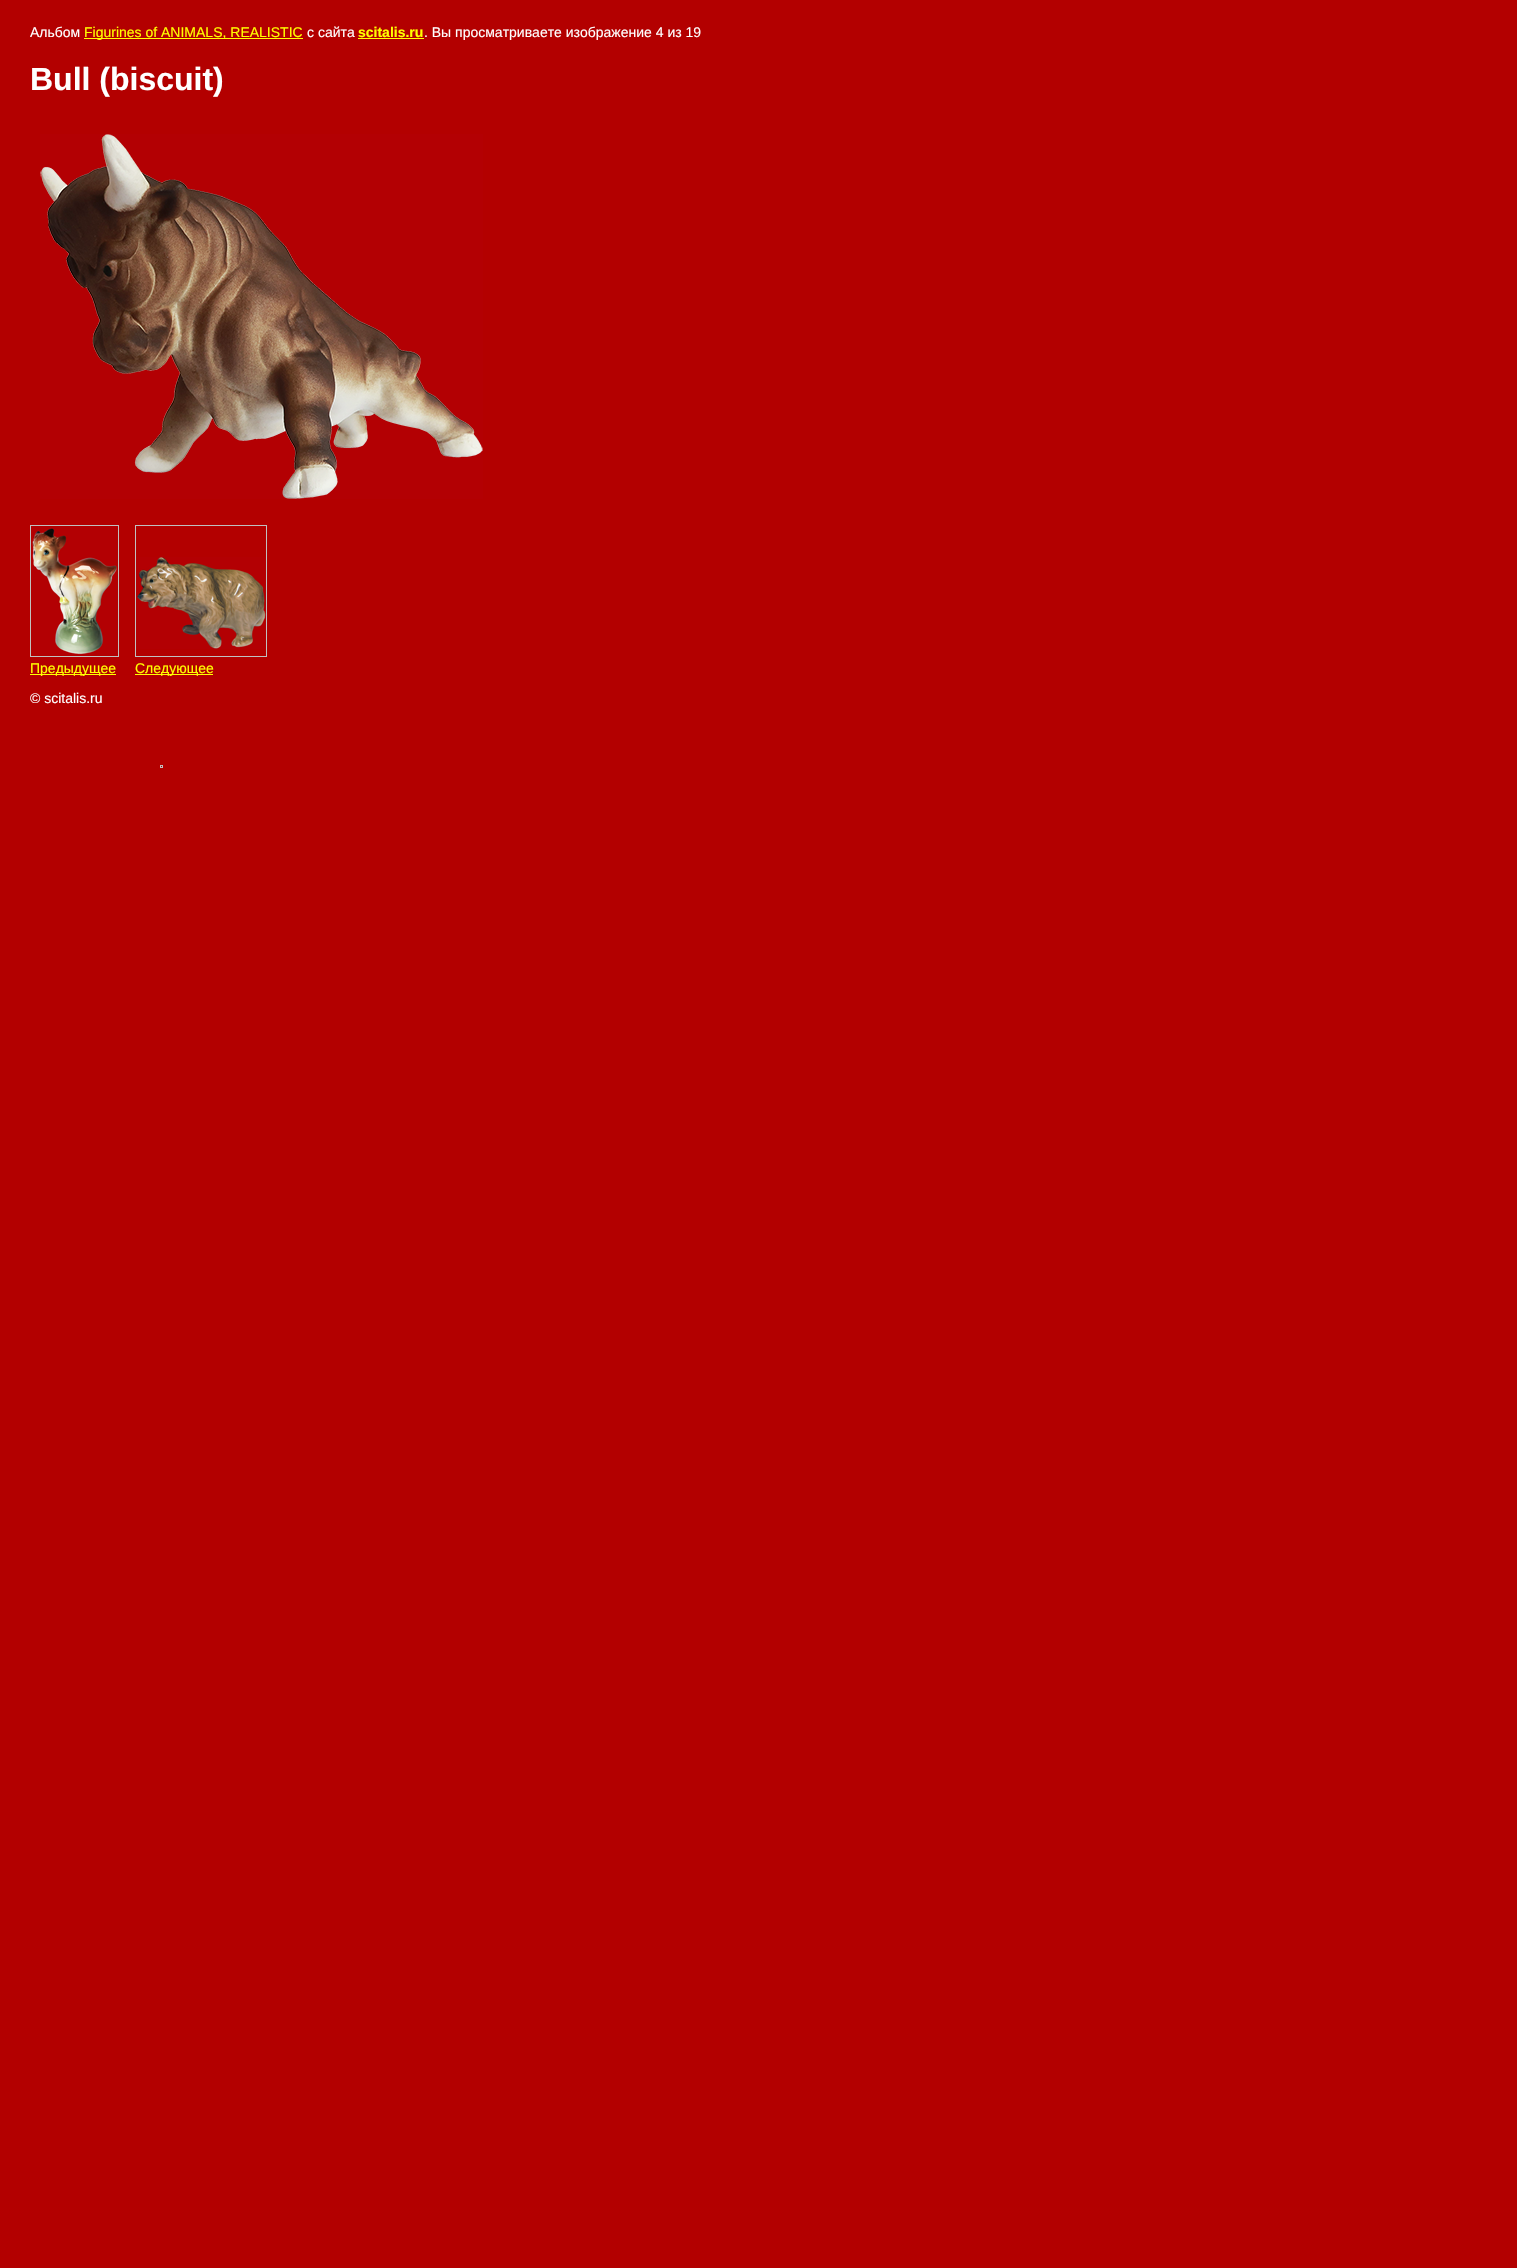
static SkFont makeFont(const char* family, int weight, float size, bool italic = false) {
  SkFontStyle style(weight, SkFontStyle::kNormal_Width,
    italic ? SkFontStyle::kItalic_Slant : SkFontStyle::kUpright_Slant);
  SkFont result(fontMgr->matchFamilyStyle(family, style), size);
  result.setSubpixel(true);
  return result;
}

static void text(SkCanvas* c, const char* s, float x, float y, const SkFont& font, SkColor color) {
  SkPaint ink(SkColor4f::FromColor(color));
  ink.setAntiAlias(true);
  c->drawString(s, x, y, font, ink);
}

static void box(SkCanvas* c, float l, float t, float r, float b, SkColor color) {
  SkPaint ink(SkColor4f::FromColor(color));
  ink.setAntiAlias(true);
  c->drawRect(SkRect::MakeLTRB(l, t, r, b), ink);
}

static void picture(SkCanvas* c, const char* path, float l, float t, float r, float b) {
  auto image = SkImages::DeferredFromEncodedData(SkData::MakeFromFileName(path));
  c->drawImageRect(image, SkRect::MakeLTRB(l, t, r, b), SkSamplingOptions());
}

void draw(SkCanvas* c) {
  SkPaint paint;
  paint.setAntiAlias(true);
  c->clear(0xffb30000);
  SkFont face1 = makeFont("Liberation Sans", 400, 14);
  text(c, "Альбом", 30, 37, face1, 0xffffffff);
  box(c, 84, 38, 303, 39, 0xffffff00);
  text(c, "Figurines of ANIMALS, REALISTIC", 84, 37, face1, 0xffffff00);
  text(c, "с сайта", 307, 37, face1, 0xffffffff);
  SkFont face2 = makeFont("Liberation Sans", 700, 14);
  text(c, "scitalis.ru", 358, 37, face2, 0xffffff00);
  box(c, 358, 38, 424, 39, 0xffffff00);
  text(c, ". Вы просматриваете изображение 4 из 19", 424, 37, face1, 0xffffffff);
  SkFont face3 = makeFont("Liberation Sans", 700, 32);
  text(c, "Bull (biscuit)", 30, 90, face3, 0xffffffff);
  picture(c, "img_01.png", 40, 134, 483, 499);
  paint.setStyle(SkPaint::kStroke_Style);
  paint.setStrokeWidth(1);
  paint.setColor(0xffc0c0c0);
  c->drawRect(SkRect::MakeLTRB(30.5f, 525.5f, 118.5f, 656.5f), paint);
  picture(c, "img_02.png", 32, 527, 117, 655);
  box(c, 30, 674, 116, 675, 0xffffff00);
  text(c, "Предыдущее", 30, 673, face1, 0xffffff00);
  c->drawRect(SkRect::MakeLTRB(135.5f, 525.5f, 266.5f, 656.5f), paint);
  picture(c, "img_03.png", 136, 557, 266, 649);
  box(c, 135, 674, 213, 675, 0xffffff00);
  text(c, "Следующее", 135, 673, face1, 0xffffff00);
  text(c, "© scitalis.ru", 30, 703, face1, 0xffffffff);
  c->drawRect(SkRect::MakeLTRB(160.5f, 765.5f, 162.5f, 767.5f), paint);
}
